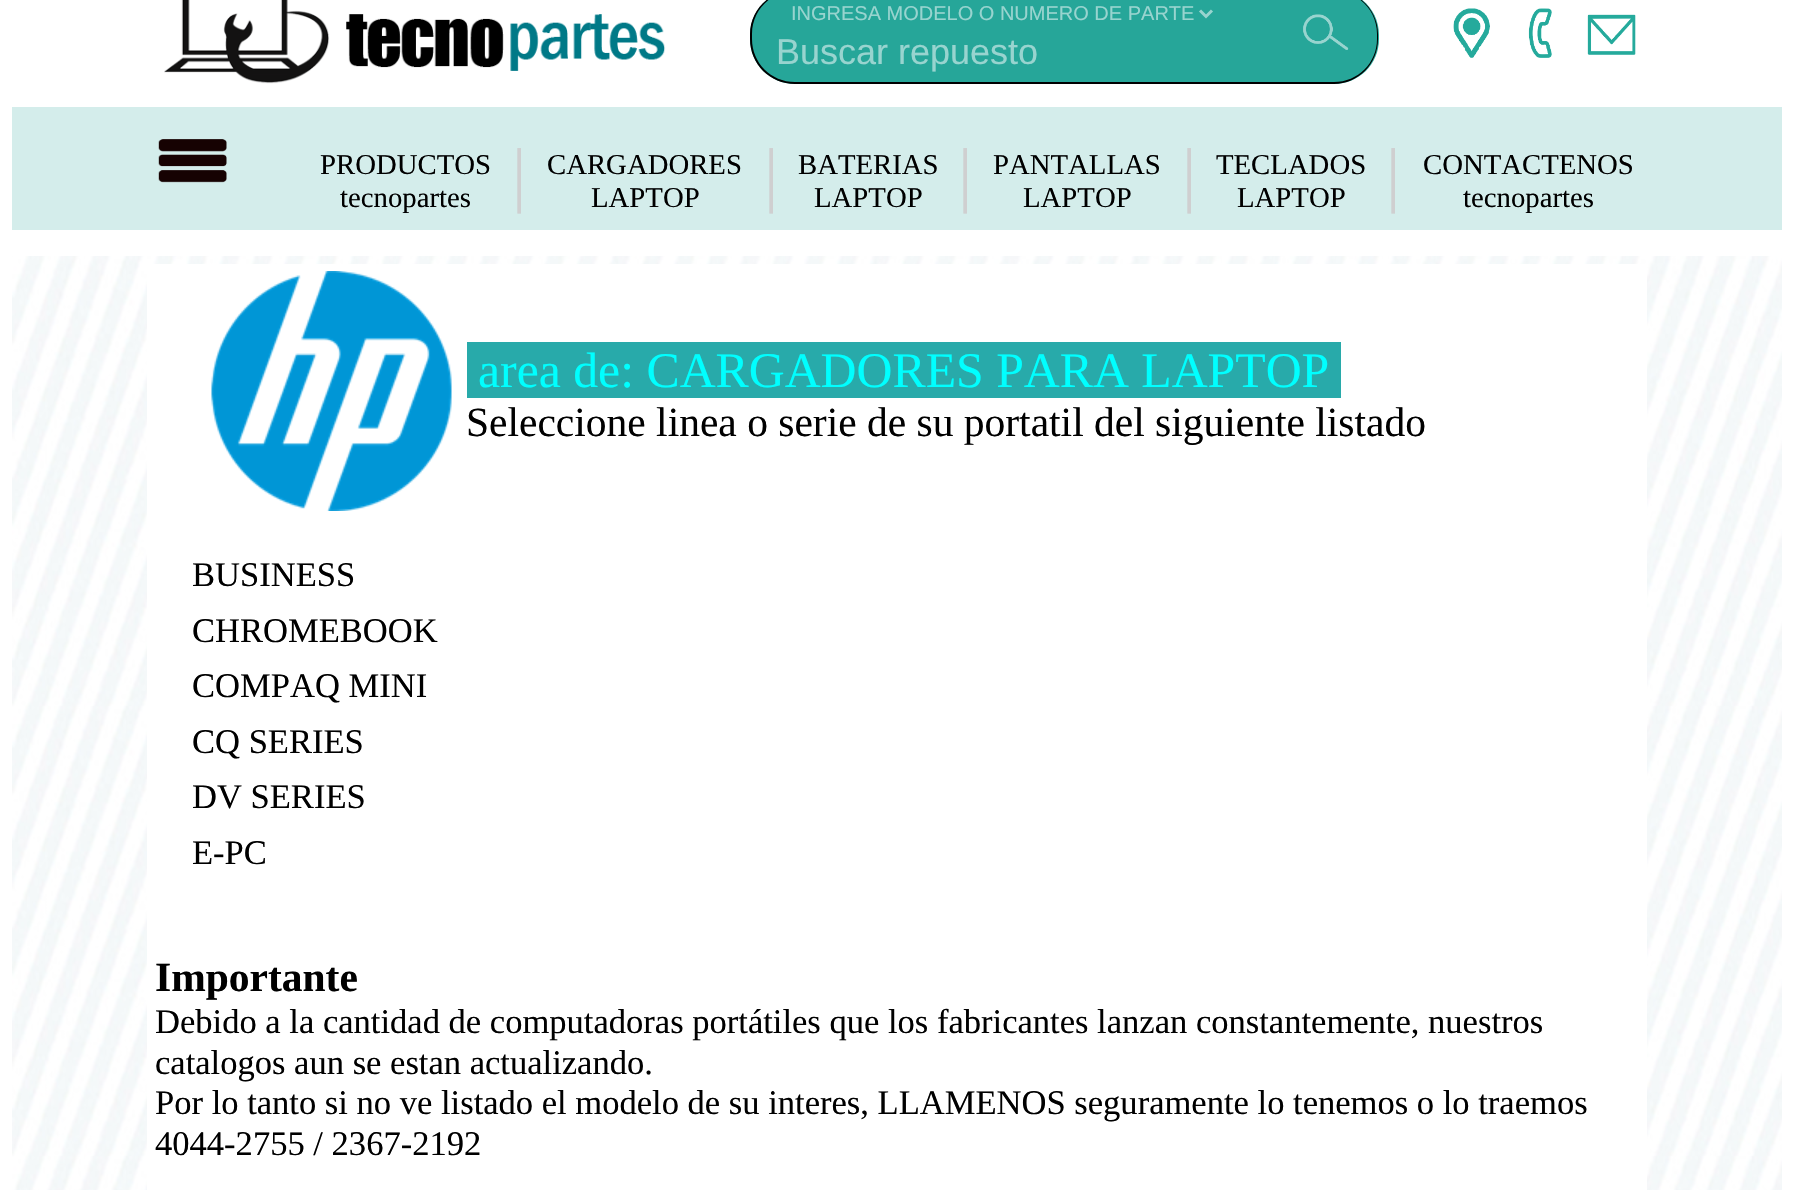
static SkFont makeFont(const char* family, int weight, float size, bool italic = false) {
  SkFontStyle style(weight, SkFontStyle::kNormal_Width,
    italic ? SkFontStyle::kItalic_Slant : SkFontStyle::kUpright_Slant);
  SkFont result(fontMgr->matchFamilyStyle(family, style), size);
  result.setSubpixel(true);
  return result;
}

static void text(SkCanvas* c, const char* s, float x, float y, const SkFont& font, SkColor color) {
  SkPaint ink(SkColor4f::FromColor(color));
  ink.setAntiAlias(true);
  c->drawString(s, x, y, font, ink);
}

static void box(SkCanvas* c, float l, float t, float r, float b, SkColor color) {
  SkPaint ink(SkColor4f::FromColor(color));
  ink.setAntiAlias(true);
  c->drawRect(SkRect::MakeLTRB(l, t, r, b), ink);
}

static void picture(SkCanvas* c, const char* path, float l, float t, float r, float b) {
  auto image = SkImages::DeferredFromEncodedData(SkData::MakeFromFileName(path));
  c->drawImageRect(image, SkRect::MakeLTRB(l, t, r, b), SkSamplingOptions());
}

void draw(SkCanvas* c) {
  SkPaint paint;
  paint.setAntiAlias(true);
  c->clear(0xffffffff);
  picture(c, "img_01.png", 164, 0, 666, 84);
  paint.setColor(0xff26a699);
  c->drawPath(SkPathBuilder().moveTo(795, -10).lineTo(1293, -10).lineTo(1293, 84).lineTo(795, 84).cubicTo(770, 84, 750, 64, 750, 39).lineTo(750, 35).cubicTo(750, 10, 770, -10, 795, -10).close().detach(), paint);
  paint.setColor(0xff000000);
  c->drawPath(SkPathBuilder(SkPathFillType::kEvenOdd).moveTo(795, -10).lineTo(1293, -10).lineTo(1293, 84).lineTo(795, 84).cubicTo(770, 84, 750, 64, 750, 39).lineTo(750, 34).cubicTo(750, 10, 770, -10, 795, -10).close().moveTo(795, -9).lineTo(1293, -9).lineTo(1293, 82).lineTo(795, 82).cubicTo(771, 82, 752, 63, 752, 39).lineTo(752, 34).cubicTo(752, 10, 771, -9, 795, -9).close().detach(), paint);
  paint.setStyle(SkPaint::kStroke_Style);
  paint.setStrokeWidth(3);
  paint.setColor(0xff98d4cf);
  c->drawPath(SkPathBuilder().moveTo(1200, 10.5f).lineTo(1206, 16.5f).lineTo(1212, 10.5f).detach(), paint);
  SkFont face1 = makeFont("Liberation Sans", 400, 20);
  text(c, "INGRESA MODELO O NUMERO DE PARTE", 791, 20, face1, 0xff98d4cf);
  SkFont face2 = makeFont("Liberation Sans", 400, 36);
  text(c, "Buscar repuesto", 776, 64, face2, 0xff98d4cf);
  paint.setStyle(SkPaint::kFill_Style);
  paint.setColor(0xff26a699);
  c->drawPath(SkPathBuilder().moveTo(1293, -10).lineTo(1334, -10).cubicTo(1359, -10, 1379, 10, 1379, 35).lineTo(1379, 39).cubicTo(1379, 64, 1359, 84, 1334, 84).lineTo(1293, 84).close().detach(), paint);
  paint.setColor(0xff000000);
  c->drawPath(SkPathBuilder(SkPathFillType::kEvenOdd).moveTo(1293, -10).lineTo(1334, -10).cubicTo(1358, -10, 1378, 10, 1378, 34).lineTo(1378, 39).cubicTo(1378, 64, 1358, 84, 1334, 84).lineTo(1293, 84).close().moveTo(1293, -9).lineTo(1334, -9).cubicTo(1358, -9, 1377, 10, 1377, 34).lineTo(1377, 39).cubicTo(1377, 63, 1358, 82, 1334, 82).lineTo(1293, 82).close().detach(), paint);
  picture(c, "img_02.png", 1303, 14, 1349, 50);
  picture(c, "img_03.png", 1453, 8, 1490, 58);
  picture(c, "img_04.png", 1528, 8, 1552, 58);
  picture(c, "img_05.png", 1587, 14, 1636, 55);
  box(c, 12, 107, 1782, 230, 0xffd4edeb);
  picture(c, "img_06.png", 158, 139, 227, 183);
  SkFont face3 = makeFont("Liberation Serif", 400, 28.75f);
  text(c, "PRODUCTOS", 320, 174, face3, 0xff000000);
  text(c, "tecnopartes", 340, 207, face3, 0xff000000);
  SkFont face4 = makeFont("Liberation Serif", 400, 72);
  text(c, "|", 512, 198, face4, 0xffcfcfd0);
  text(c, "CARGADORES", 547, 174, face3, 0xff000000);
  text(c, "LAPTOP", 591, 207, face3, 0xff000000);
  text(c, "|", 764, 198, face4, 0xffcfcfd0);
  text(c, "BATERIAS", 798, 174, face3, 0xff000000);
  text(c, "LAPTOP", 814, 207, face3, 0xff000000);
  text(c, "|", 958, 198, face4, 0xffcfcfd0);
  text(c, "PANTALLAS", 993, 174, face3, 0xff000000);
  text(c, "LAPTOP", 1023, 207, face3, 0xff000000);
  text(c, "|", 1182, 198, face4, 0xffcfcfd0);
  text(c, "TECLADOS", 1216, 174, face3, 0xff000000);
  text(c, "LAPTOP", 1237, 207, face3, 0xff000000);
  text(c, "|", 1386, 198, face4, 0xffcfcfd0);
  text(c, "CONTACTENOS", 1423, 174, face3, 0xff000000);
  text(c, "tecnopartes", 1463, 207, face3, 0xff000000);
  picture(c, "img_07.png", 12, 256, 1782, 1190);
  box(c, 147, 264, 1647, 1190, 0xffffffff);
  picture(c, "img_08.png", 211, 271, 452, 511);
  box(c, 467, 342, 1341, 398, 0xff28aaaa);
  SkFont face5 = makeFont("Liberation Serif", 400, 49.75f);
  text(c, "area de: CARGADORES PARA LAPTOP", 478, 387, face5, 0xff00ffff);
  SkFont face6 = makeFont("Liberation Serif", 400, 41.5f);
  text(c, "Seleccione linea o serie de su portatil del siguiente listado", 466, 436, face6, 0xff000000);
  SkFont face7 = makeFont("Liberation Serif", 400, 34.55f);
  text(c, "BUSINESS", 192, 586, face7, 0xff000000);
  text(c, "CHROMEBOOK", 192, 642, face7, 0xff000000);
  text(c, "COMPAQ MINI", 192, 697, face7, 0xff000000);
  text(c, "CQ SERIES", 192, 753, face7, 0xff000000);
  text(c, "DV SERIES", 192, 808, face7, 0xff000000);
  text(c, "E-PC", 192, 864, face7, 0xff000000);
  SkFont face8 = makeFont("Liberation Serif", 700, 41.5f);
  text(c, "Importante", 155, 991, face8, 0xff000000);
  text(c, "Debido a la cantidad de computadoras portátiles que los fabricantes lanzan constantemente, nuestros", 155, 1033, face7, 0xff000000);
  text(c, "catalogos aun se estan actualizando.", 155, 1074, face7, 0xff000000);
  text(c, "Por lo tanto si no ve listado el modelo de su interes, LLAMENOS seguramente lo tenemos o lo traemos", 155, 1114, face7, 0xff000000);
  text(c, "4044-2755 / 2367-2192", 155, 1155, face7, 0xff000000);
}
